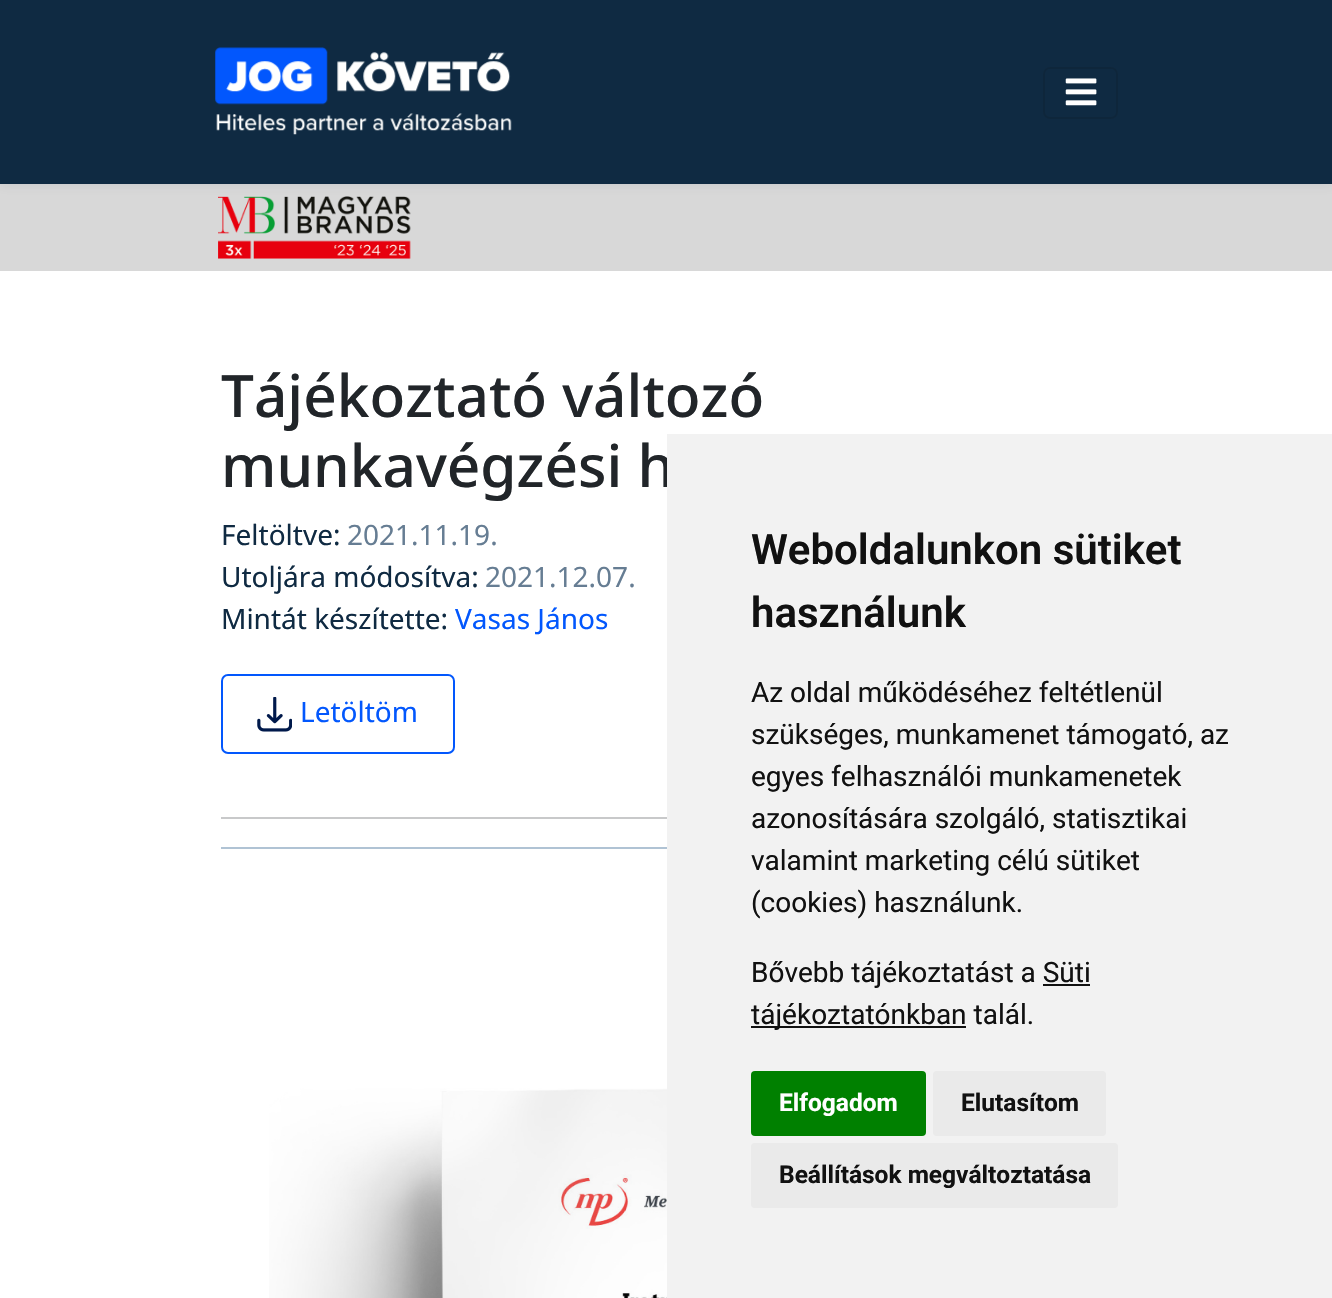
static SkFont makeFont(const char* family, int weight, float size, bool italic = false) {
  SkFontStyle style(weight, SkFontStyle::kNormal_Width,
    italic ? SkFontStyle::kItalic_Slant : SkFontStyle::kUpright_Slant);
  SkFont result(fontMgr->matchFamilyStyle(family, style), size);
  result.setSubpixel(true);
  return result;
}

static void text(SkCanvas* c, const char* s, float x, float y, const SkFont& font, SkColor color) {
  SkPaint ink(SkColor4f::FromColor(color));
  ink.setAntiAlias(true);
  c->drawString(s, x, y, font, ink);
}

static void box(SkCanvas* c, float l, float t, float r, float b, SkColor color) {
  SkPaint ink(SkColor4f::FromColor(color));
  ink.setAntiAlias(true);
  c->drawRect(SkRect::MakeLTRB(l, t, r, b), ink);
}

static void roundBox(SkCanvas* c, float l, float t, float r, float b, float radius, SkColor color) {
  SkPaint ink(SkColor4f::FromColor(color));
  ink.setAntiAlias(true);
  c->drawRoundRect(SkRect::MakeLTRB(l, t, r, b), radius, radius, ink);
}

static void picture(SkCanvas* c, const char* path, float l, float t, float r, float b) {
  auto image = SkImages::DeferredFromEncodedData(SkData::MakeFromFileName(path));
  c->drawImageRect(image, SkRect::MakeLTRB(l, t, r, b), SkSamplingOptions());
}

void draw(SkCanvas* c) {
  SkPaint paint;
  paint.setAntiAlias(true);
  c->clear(0xffffffff);
  box(c, 0, 184, 1332, 271, 0xffd8d8d8);
  picture(c, "img_03.png", 218, 196, 411, 259);
  paint.setColor(0x1a0f2a42);
  paint.setMaskFilter(SkMaskFilter::MakeBlur(kNormal_SkBlurStyle, 6));
  c->drawRect(SkRect::MakeLTRB(0, 0, 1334, 184), paint);
  paint.setMaskFilter(nullptr);
  box(c, 0, 0, 1332, 184, 0xff0f2a42);
  picture(c, "img_01.png", 215, 47, 512, 135);
  paint.setStyle(SkPaint::kStroke_Style);
  paint.setStrokeWidth(2);
  paint.setColor(0xff0e263b);
  c->drawRoundRect(SkRect::MakeLTRB(1044, 68, 1117, 118), 6, 6, paint);
  picture(c, "img_02.png", 1065, 78, 1097, 106);
  SkFont face1 = makeFont("Noto Sans", 500, 58.5f);
  text(c, "Tájékoztató változó", 221, 417, face1, 0xff212529);
  text(c, "munkavégzési h", 221, 487, face1, 0xff212529);
  SkFont face2 = makeFont("Noto Sans", 400, 28);
  text(c, "Feltöltve:", 221, 545, face2, 0xff0f2a42);
  text(c, "2021.11.19.", 347, 545, face2, 0xff667d93);
  text(c, "Utoljára módosítva:", 221, 587, face2, 0xff0f2a42);
  text(c, "2021.12.07.", 485, 587, face2, 0xff667d93);
  text(c, "Mintát készítette:", 221, 629, face2, 0xff0f2a42);
  text(c, "Vasas János", 455, 629, face2, 0xff0257fd);
  paint.setColor(0xff0257fd);
  c->drawRoundRect(SkRect::MakeLTRB(222, 675, 454, 753), 6, 6, paint);
  picture(c, "img_04.png", 257, 697, 292, 732);
  text(c, "Letöltöm", 300, 722, face2, 0xff0257fd);
  box(c, 221, 817, 667, 819, 0xffc8c9ca);
  box(c, 221, 847, 667, 849, 0xffb0c3d4);
  picture(c, "img_05.png", 269, 1088, 667, 1298);
  box(c, 667, 434, 1332, 1298, 0xfff2f2f2);
  SkFont face3 = makeFont("Roboto", 600, 42);
  text(c, "Weboldalunkon sütiket", 751, 564, face3, 0xff111111);
  text(c, "használunk", 751, 627, face3, 0xff111111);
  SkFont face4 = makeFont("Roboto", 400, 28);
  text(c, "Az oldal működéséhez feltétlenül", 751, 702, face4, 0xff111111);
  text(c, "szükséges, munkamenet támogató, az", 751, 744, face4, 0xff111111);
  text(c, "egyes felhasználói munkamenetek", 751, 786, face4, 0xff111111);
  text(c, "azonosítására szolgáló, statisztikai", 751, 828, face4, 0xff111111);
  text(c, "valamint marketing célú sütiket", 751, 870, face4, 0xff111111);
  text(c, "(cookies) használunk.", 751, 912, face4, 0xff111111);
  text(c, "Bővebb tájékoztatást a Süti", 751, 982, face4, 0xff111111);
  box(c, 751, 1026, 966, 1028, 0xff111111);
  text(c, "tájékoztatónkban talál.", 751, 1024, face4, 0xff111111);
  box(c, 1043, 984, 1090, 986, 0xff111111);
  roundBox(c, 751, 1071, 926, 1136, 4, 0xff008000);
  SkFont face5 = makeFont("Roboto", 700, 24.5f);
  text(c, "Elfogadom", 779, 1111, face5, 0xffffffff);
  roundBox(c, 933, 1071, 1106, 1136, 4, 0xffeaeaea);
  text(c, "Elutasítom", 961, 1111, face5, 0xff111111);
  roundBox(c, 751, 1143, 1118, 1208, 4, 0xffeaeaea);
  text(c, "Beállítások megváltoztatása", 779, 1183, face5, 0xff111111);
}
